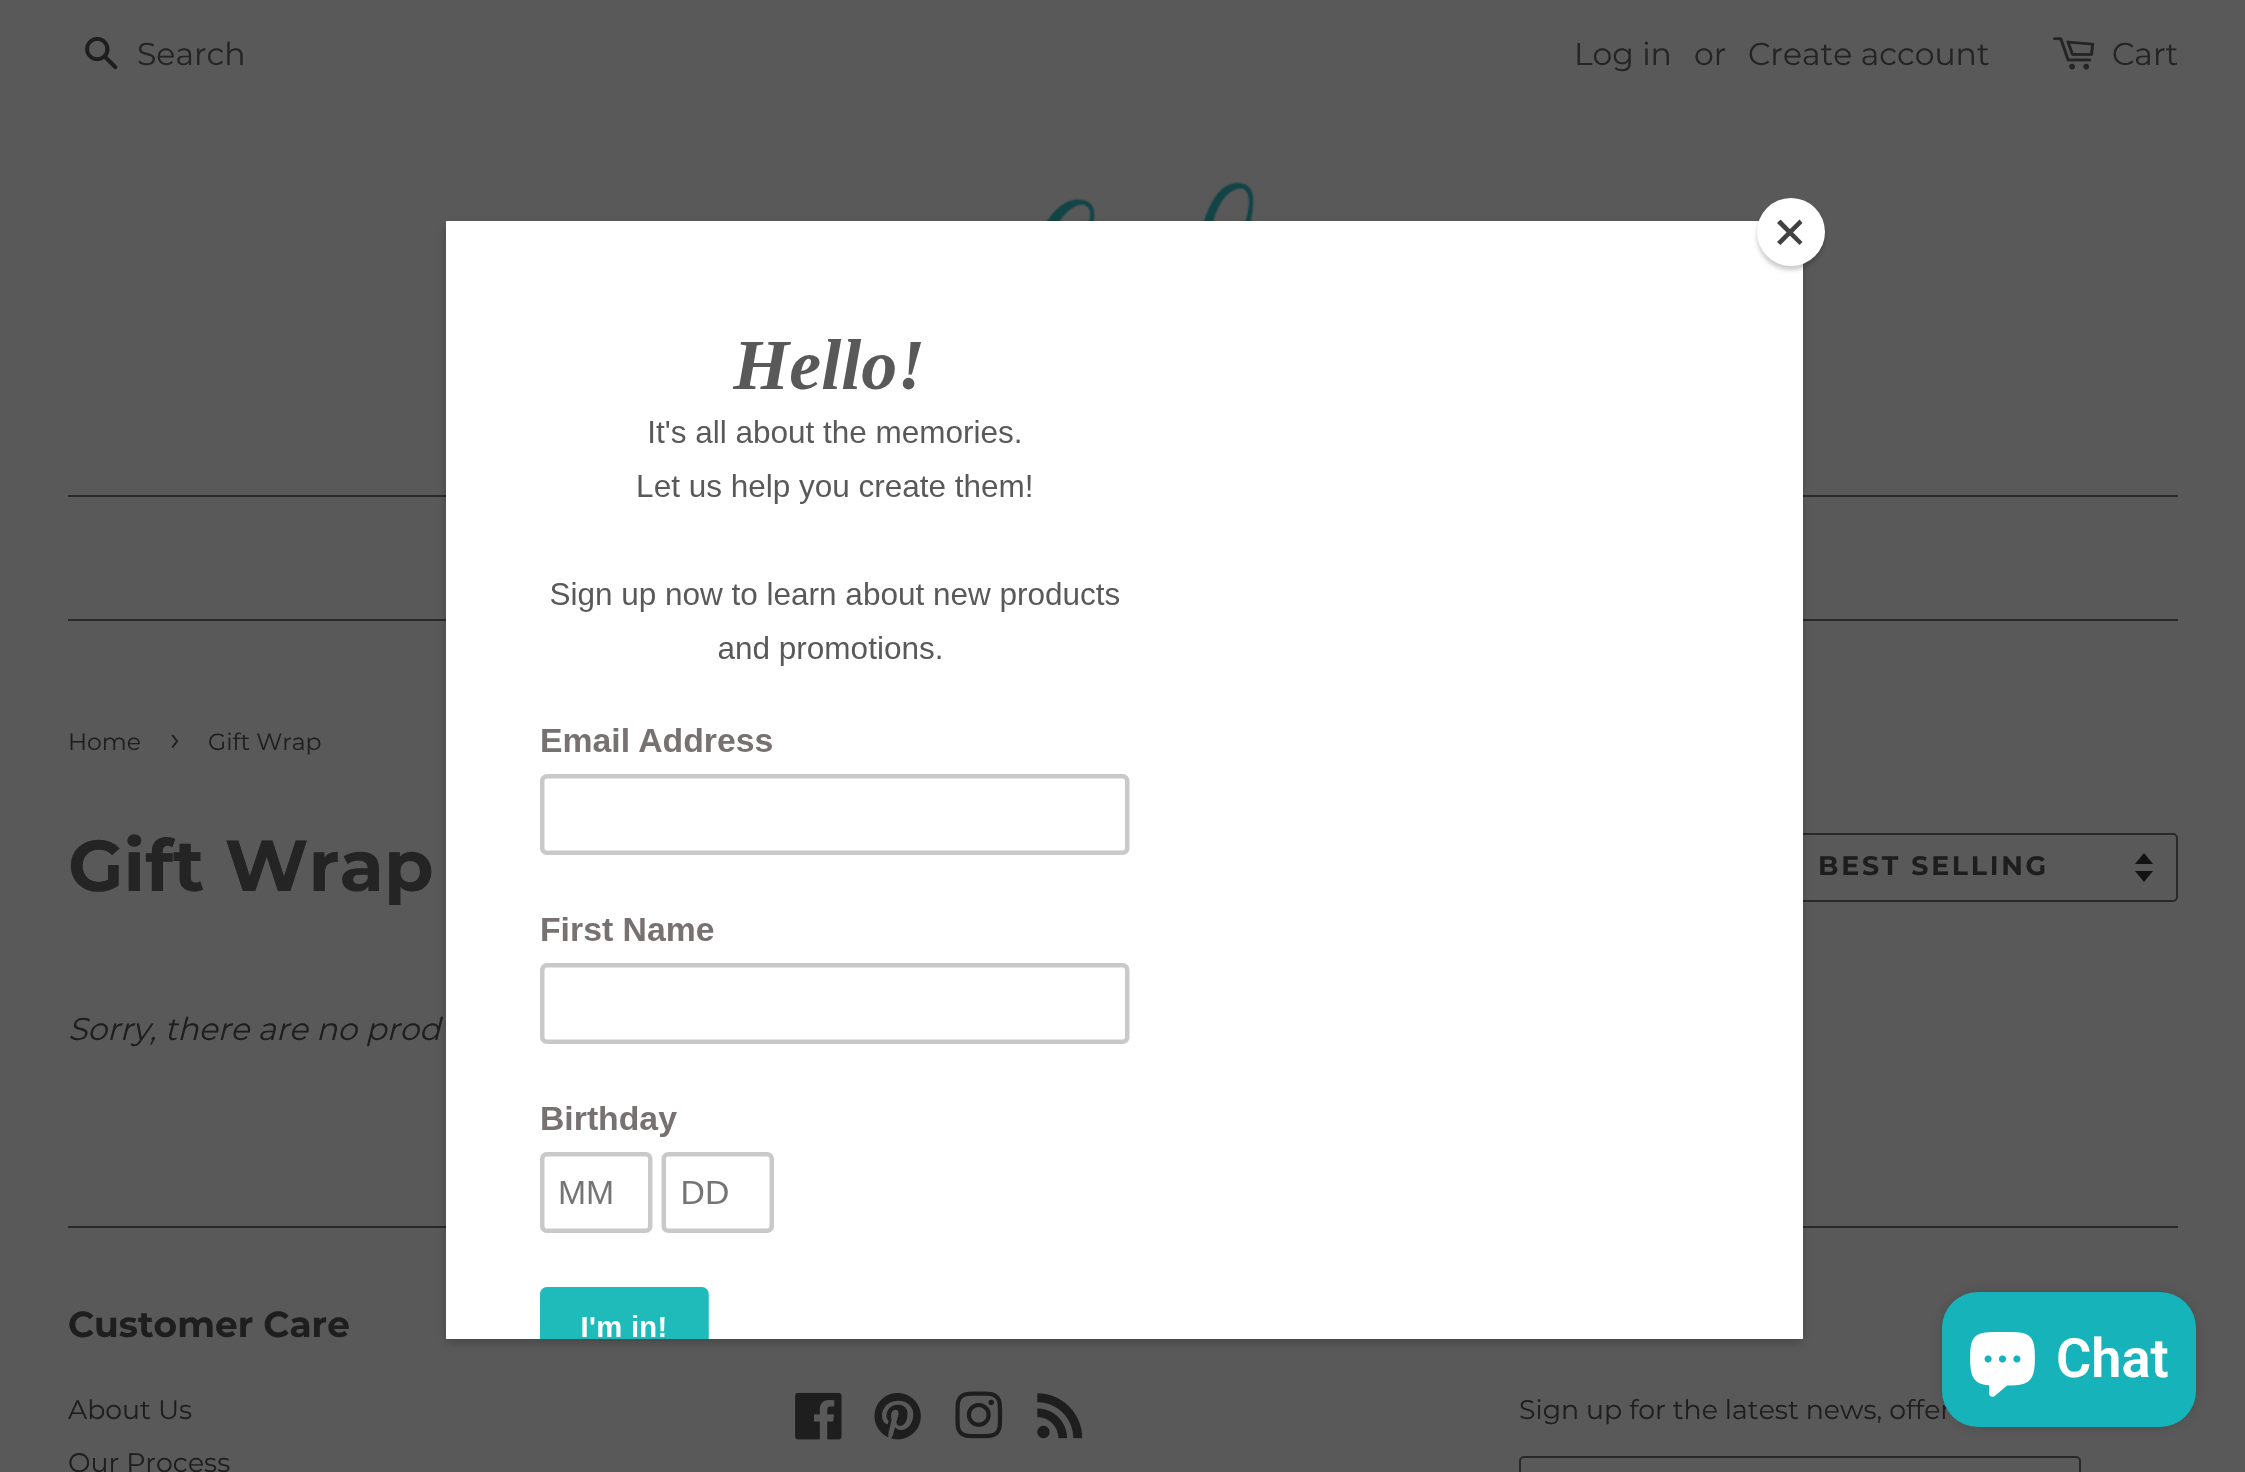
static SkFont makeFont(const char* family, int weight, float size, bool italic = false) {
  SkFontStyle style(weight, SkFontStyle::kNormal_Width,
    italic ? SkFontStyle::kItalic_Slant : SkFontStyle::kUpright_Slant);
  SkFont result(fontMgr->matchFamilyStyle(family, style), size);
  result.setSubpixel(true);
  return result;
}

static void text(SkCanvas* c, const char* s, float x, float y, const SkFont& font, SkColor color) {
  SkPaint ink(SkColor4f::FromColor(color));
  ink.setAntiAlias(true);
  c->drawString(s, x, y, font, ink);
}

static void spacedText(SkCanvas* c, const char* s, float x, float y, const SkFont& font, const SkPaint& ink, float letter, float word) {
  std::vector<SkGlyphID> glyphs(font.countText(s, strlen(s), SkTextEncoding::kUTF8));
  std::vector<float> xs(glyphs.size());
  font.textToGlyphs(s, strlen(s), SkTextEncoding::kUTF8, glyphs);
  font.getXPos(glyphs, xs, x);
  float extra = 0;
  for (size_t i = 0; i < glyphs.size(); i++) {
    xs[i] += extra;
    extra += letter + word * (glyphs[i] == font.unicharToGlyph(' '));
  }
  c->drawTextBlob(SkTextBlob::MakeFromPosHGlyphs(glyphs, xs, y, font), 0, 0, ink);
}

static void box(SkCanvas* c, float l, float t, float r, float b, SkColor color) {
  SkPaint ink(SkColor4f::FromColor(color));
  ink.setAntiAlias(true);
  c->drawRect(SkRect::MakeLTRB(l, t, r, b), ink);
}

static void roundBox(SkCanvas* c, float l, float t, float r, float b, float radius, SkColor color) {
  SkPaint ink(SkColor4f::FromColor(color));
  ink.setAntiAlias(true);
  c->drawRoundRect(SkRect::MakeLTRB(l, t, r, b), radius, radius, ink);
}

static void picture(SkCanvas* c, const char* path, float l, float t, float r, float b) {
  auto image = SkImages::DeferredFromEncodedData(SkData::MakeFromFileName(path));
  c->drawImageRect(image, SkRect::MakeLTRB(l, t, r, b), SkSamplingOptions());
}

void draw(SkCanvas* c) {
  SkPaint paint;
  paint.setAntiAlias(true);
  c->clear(0xff595959);
  picture(c, "img_01.png", 85, 36, 118, 70);
  SkFont face1 = makeFont("Montserrat", 400, 31.5f);
  text(c, "Search", 137, 65, face1, 0xff242424);
  text(c, "Log in", 1574, 65, face1, 0xff242424);
  text(c, "or", 1694, 65, face1, 0xff242424);
  text(c, "Create account", 1748, 65, face1, 0xff242424);
  picture(c, "img_02.png", 2053, 37, 2095, 70);
  text(c, "Cart", 2112, 65, face1, 0xff242424);
  picture(c, "img_03.png", 1046, 182, 1255, 221);
  box(c, 68, 495, 2178, 497, 0xff292929);
  box(c, 68, 619, 2178, 621, 0xff292929);
  paint.setColor(0xff121212);
  c->drawPath(SkPathBuilder().moveTo(2135, 871).lineTo(2144, 882).lineTo(2153, 871).close().moveTo(2144, 853).lineTo(2135, 864).lineTo(2153, 864).close().detach(), paint);
  paint.setStyle(SkPaint::kStroke_Style);
  paint.setStrokeWidth(2);
  paint.setColor(0xff292929);
  c->drawRoundRect(SkRect::MakeLTRB(1729, 834, 2177, 901), 4, 4, paint);
  box(c, 68, 1226, 2178, 1228, 0xff292929);
  paint.setStyle(SkPaint::kFill_Style);
  paint.setColor(0x33000000);
  paint.setMaskFilter(SkMaskFilter::MakeBlur(kNormal_SkBlurStyle, 4.5f));
  c->drawRect(SkRect::MakeLTRB(446, 225, 1802, 1343), paint);
  paint.setMaskFilter(nullptr);
  picture(c, "img_04.png", 446, 221, 1803, 1339);
  paint.setMaskFilter(SkMaskFilter::MakeBlur(kNormal_SkBlurStyle, 2));
  c->drawRoundRect(SkRect::MakeLTRB(1757, 203, 1825, 270), 33.5f, 33.5f, paint);
  paint.setMaskFilter(nullptr);
  paint.setColor(0xffffffff);
  c->drawCircle(1791, 232, 34, paint);
  paint.setColor(0xff414141);
  c->drawPath(SkPathBuilder().moveTo(1799.5f, 219.5f).lineTo(1802.5f, 223).lineTo(1780.5f, 245).lineTo(1777, 242).close().detach(), paint);
  c->drawPath(SkPathBuilder().moveTo(1777, 223).lineTo(1780.5f, 219.5f).lineTo(1802.5f, 242).lineTo(1799.5f, 245).close().detach(), paint);
  SkFont face2 = makeFont("Montserrat", 400, 23.5f);
  text(c, "Home", 68, 750, face2, 0xff1e1e1e);
  SkFont face3 = makeFont("Montserrat", 400, 33);
  text(c, "›", 170, 750, face3, 0xff1e1e1e);
  text(c, "Gift Wrap", 208, 750, face2, 0xff1e1e1e);
  SkFont face4 = makeFont("Montserrat", 700, 72);
  text(c, "Gift Wrap", 68, 891, face4, 0xff242424);
  SkFont face5 = makeFont("Montserrat", 700, 26.75f);
  paint.setColor(0xff1e1e1e);
  spacedText(c, "BEST SELLING", 1818, 875, face5, paint, 2.75f, 0);
  SkFont face6 = makeFont("Montserrat", 400, 31.5f, true);
  text(c, "Sorry, there are no prod", 68, 1040, face6, 0xff1e1e1e);
  SkFont face7 = makeFont("Montserrat", 700, 36);
  text(c, "Customer Care", 68, 1337, face7, 0xff1e1e1e);
  SkFont face8 = makeFont("Montserrat", 400, 26.75f);
  text(c, "About Us", 68, 1419, face8, 0xff1e1e1e);
  text(c, "Our Process", 68, 1472, face8, 0xff1e1e1e);
  picture(c, "img_05.png", 795, 1392, 842, 1440);
  picture(c, "img_06.png", 874, 1393, 921, 1440);
  picture(c, "img_07.png", 955, 1391, 1003, 1439);
  picture(c, "img_08.png", 1037, 1393, 1083, 1439);
  text(c, "Sign up for the latest news, offer", 1519, 1419, face8, 0xff1e1e1e);
  paint.setStyle(SkPaint::kStroke_Style);
  paint.setColor(0xff292929);
  c->drawRoundRect(SkRect::MakeLTRB(1520, 1457, 2080, 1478), 4, 4, paint);
  paint.setStyle(SkPaint::kFill_Style);
  paint.setColor(0x26000000);
  paint.setMaskFilter(SkMaskFilter::MakeBlur(kNormal_SkBlurStyle, 5.5f));
  c->drawRoundRect(SkRect::MakeLTRB(1942, 1292, 2196, 1427), 36, 36, paint);
  paint.setMaskFilter(nullptr);
  roundBox(c, 1942, 1292, 2196, 1427, 36, 0xff16b3ba);
  picture(c, "img_09.png", 1970, 1332, 2035, 1397);
  SkFont face9 = makeFont("Roboto", 600, 54);
  text(c, "Chat", 2056, 1377, face9, 0xffffffff);
}
